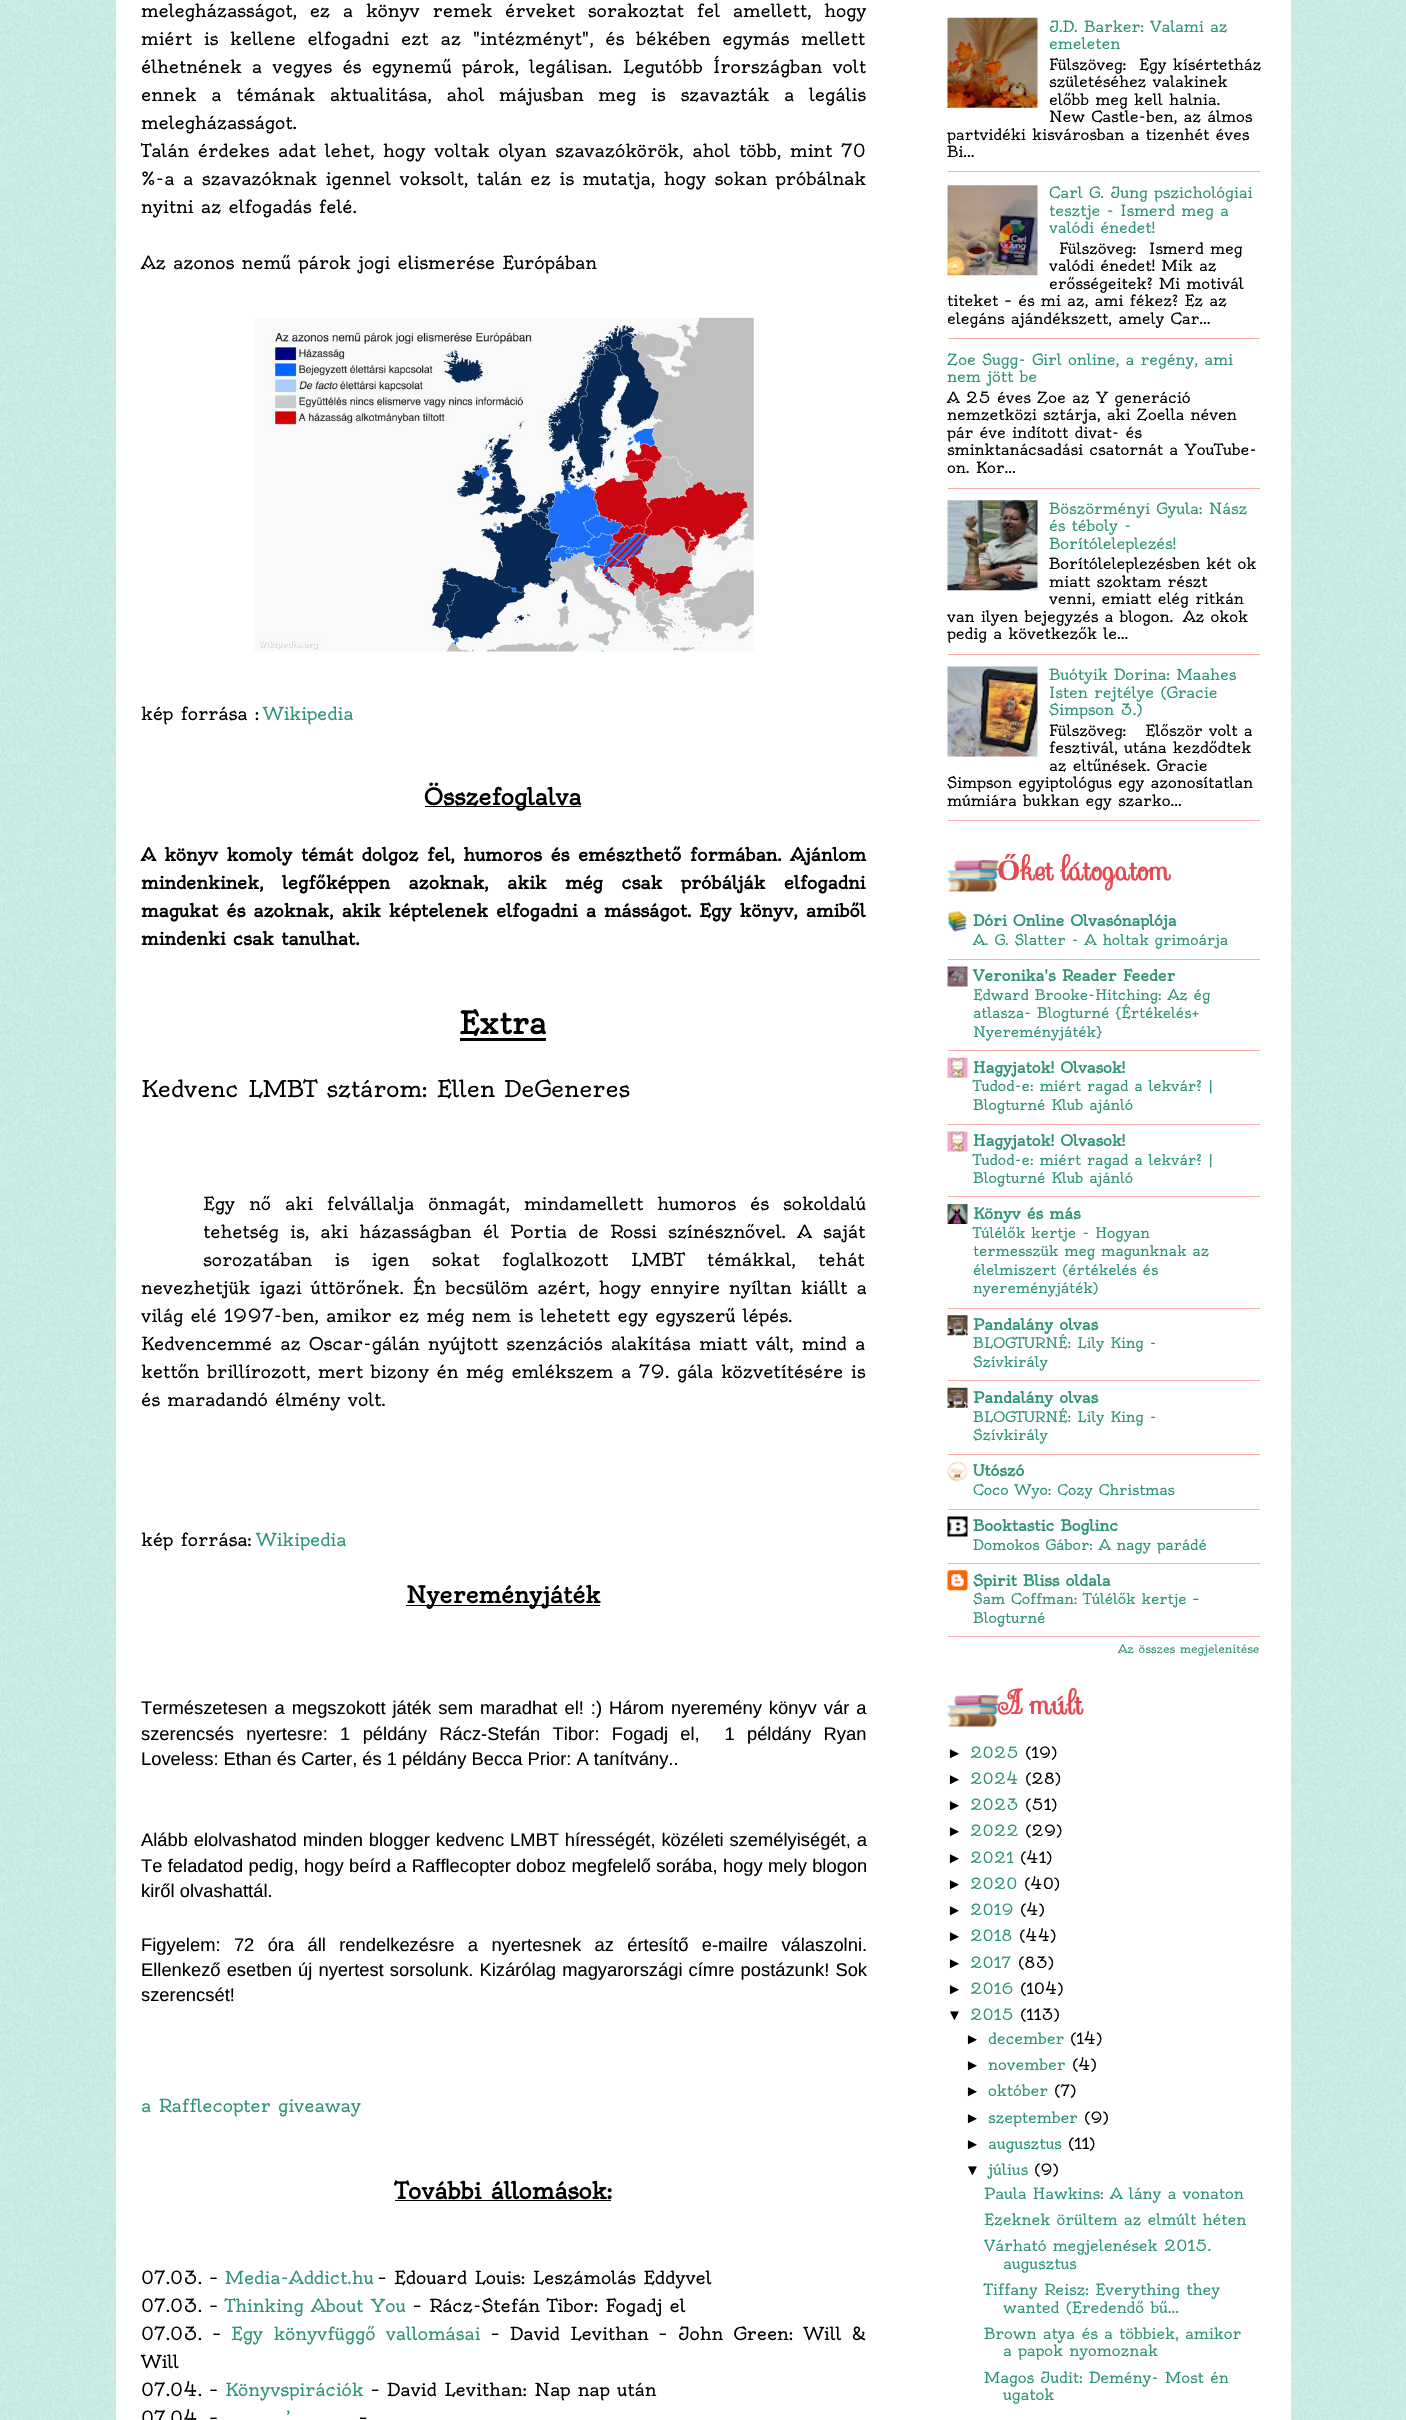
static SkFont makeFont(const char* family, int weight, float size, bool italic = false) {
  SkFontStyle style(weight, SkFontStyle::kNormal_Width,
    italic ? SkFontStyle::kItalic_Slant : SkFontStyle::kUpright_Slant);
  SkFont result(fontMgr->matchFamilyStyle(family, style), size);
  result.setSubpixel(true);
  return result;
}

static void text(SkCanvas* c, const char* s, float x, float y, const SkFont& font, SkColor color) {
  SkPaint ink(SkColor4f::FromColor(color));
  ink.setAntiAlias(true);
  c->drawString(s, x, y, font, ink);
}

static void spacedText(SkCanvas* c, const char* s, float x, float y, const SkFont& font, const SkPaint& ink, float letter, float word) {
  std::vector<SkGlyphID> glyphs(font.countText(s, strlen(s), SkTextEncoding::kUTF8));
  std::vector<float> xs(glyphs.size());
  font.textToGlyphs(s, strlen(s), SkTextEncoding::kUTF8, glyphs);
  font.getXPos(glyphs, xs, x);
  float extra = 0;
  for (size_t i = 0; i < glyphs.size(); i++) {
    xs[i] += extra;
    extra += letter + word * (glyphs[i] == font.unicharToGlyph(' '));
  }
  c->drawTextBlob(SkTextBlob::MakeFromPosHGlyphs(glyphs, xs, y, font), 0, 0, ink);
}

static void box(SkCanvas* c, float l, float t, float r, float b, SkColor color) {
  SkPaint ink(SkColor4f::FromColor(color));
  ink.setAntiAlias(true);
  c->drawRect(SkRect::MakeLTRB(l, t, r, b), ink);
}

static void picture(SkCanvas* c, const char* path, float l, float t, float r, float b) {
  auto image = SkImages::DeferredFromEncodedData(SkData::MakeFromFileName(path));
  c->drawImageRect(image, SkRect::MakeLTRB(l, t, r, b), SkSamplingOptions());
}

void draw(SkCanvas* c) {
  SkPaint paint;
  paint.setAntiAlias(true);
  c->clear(0xffffffff);
  picture(c, "img_01.png", 0, 0, 1406, 2420);
  box(c, 116, 0, 1291, 2420, 0xffffffff);
  SkFont face1 = makeFont("Oldenburg", 400, 17.5f);
  paint.setColor(0xff000000);
  spacedText(c, "melegházasságot, ez a könyv remek érveket sorakoztat fel amellett, hogy", 141, 17, face1, paint, 0, 5.5f);
  spacedText(c, "miért is kellene elfogadni ezt az \"intézményt\", és békében egymás mellett", 141, 45, face1, paint, 0, 4.5f);
  spacedText(c, "élhetnének a vegyes és egynemű párok, legálisan. Legutóbb Írországban volt", 141, 73, face1, paint, 0, 3);
  spacedText(c, "ennek a témának aktualitása, ahol májusban meg is szavazták a legális", 141, 101, face1, paint, 0, 7.5f);
  text(c, "melegházasságot.", 141, 129, face1, 0xff000000);
  c->save();
  c->clipRect(SkRect::MakeLTRB(141, 0, 866, 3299));
  spacedText(c, "Talán érdekes adat lehet, hogy voltak olyan szavazókörök, ahol több, mint 70", 141, 157, face1, paint, 0, 1.5f);
  c->restore();
  spacedText(c, "%-a a szavazóknak igennel voksolt, talán ez is mutatja, hogy sokan próbálnak", 141, 185, face1, paint, 0, 1.25f);
  text(c, "nyitni az elfogadás felé.", 141, 213, face1, 0xff000000);
  text(c, "Az azonos nemű párok jogi elismerése Európában", 141, 269, face1, 0xff000000);
  picture(c, "img_02.png", 254, 317, 754, 652);
  text(c, "kép forrása :", 141, 720, face1, 0xff000000);
  text(c, "Wikipedia", 263, 720, face1, 0xff2e937a);
  box(c, 425, 806, 581, 807, 0xff000000);
  SkFont face2 = makeFont("Oldenburg", 700, 22.5f);
  text(c, "Összefoglalva", 424, 805, face2, 0xff000000);
  SkFont face3 = makeFont("Oldenburg", 700, 17.5f);
  spacedText(c, "A könyv komoly témát dolgoz fel, humoros és emészthető formában. Ajánlom", 141, 861, face3, paint, 0, 1.25f);
  spacedText(c, "mindenkinek, legfőképpen azoknak, akik még csak próbálják elfogadni", 141, 889, face3, paint, 0, 11.25f);
  spacedText(c, "magukat és azoknak, akik képtelenek elfogadni a másságot. Egy könyv, amiből", 141, 917, face3, paint, 0, 0.75f);
  text(c, "mindenki csak tanulhat.", 141, 945, face3, 0xff000000);
  SkFont face4 = makeFont("Oldenburg", 700, 30);
  text(c, "Extra", 459, 1034, face4, 0xff000000);
  box(c, 460, 1038, 546, 1041, 0xff000000);
  SkFont face5 = makeFont("Oldenburg", 400, 22.5f);
  text(c, "Kedvenc LMBT sztárom: Ellen DeGeneres", 141, 1097, face5, 0xff000000);
  spacedText(c, "Egy nő aki felvállalja önmagát, mindamellett humoros és sokoldalú", 203, 1210, face1, paint, 0, 6.75f);
  spacedText(c, "tehetség is, aki házasságban él Portia de Rossi színésznővel. A saját", 203, 1238, face1, paint, 0, 4);
  spacedText(c, "sorozatában is igen sokat foglalkozott LMBT témákkal, tehát", 203, 1266, face1, paint, 0, 15);
  spacedText(c, "nevezhetjük igazi úttörőnek. Én becsülöm azért, hogy ennyire nyíltan kiállt a", 141, 1294, face1, paint, 0, 1.75f);
  text(c, "világ elé 1997-ben, amikor ez még nem is lehetett egy egyszerű lépés.", 141, 1322, face1, 0xff000000);
  spacedText(c, "Kedvencemmé az Oscar-gálán nyújtott szenzációs alakítása miatt vált, mind a", 141, 1350, face1, paint, 0, 1);
  spacedText(c, "kettőn brillírozott, mert bizony én még emlékszem a 79. gála közvetítésére is", 141, 1378, face1, paint, 0, 0.3f);
  text(c, "és maradandó élmény volt.", 141, 1406, face1, 0xff000000);
  text(c, "kép forrása:", 141, 1546, face1, 0xff000000);
  text(c, "Wikipedia", 256, 1546, face1, 0xff2e937a);
  box(c, 406, 1605, 600, 1606, 0xff000000);
  text(c, "Nyereményjáték", 406, 1603, face2, 0xff000000);
  SkFont face6 = makeFont("Liberation Sans", 400, 18.35f);
  spacedText(c, "Természetesen a megszokott játék sem maradhat el! :) Három nyeremény könyv vár a", 141, 1714, face6, paint, 0, 1.9f);
  spacedText(c, "szerencsés nyertesre: 1 példány Rácz-Stefán Tibor: Fogadj el,  1 példány Ryan", 141, 1740, face6, paint, 0, 7.25f);
  text(c, "Loveless: Ethan és Carter, és 1 példány Becca Prior: A tanítvány..", 141, 1765, face6, 0xff000000);
  spacedText(c, "Alább elolvashatod minden blogger kedvenc LMBT hírességét, közéleti személyiségét, a", 141, 1846, face6, paint, 0, 0.75f);
  spacedText(c, "Te feladatod pedig, hogy beírd a Rafflecopter doboz megfelelő sorába, hogy mely blogon", 141, 1872, face6, paint, 0, 0.25f);
  text(c, "kiről olvashattál.", 141, 1897, face6, 0xff000000);
  spacedText(c, "Figyelem: 72 óra áll rendelkezésre a nyertesnek az értesítő e-mailre válaszolni.", 141, 1951, face6, paint, 0, 8.25f);
  spacedText(c, "Ellenkező esetben új nyertest sorsolunk. Kizárólag magyarországi címre postázunk! Sok", 141, 1976, face6, paint, 0, 1);
  text(c, "szerencsét!", 141, 2001, face6, 0xff000000);
  text(c, "a Rafflecopter giveaway", 141, 2112, face1, 0xff2e937a);
  text(c, "További állomások:", 395, 2199, face2, 0xff000000);
  box(c, 395, 2200, 611, 2201, 0xff000000);
  text(c, "07.03. –", 141, 2284, face1, 0xff000000);
  text(c, "Media-Addict.hu", 225, 2284, face1, 0xff2e937a);
  text(c, "– Edouard Louis: Leszámolás Eddyvel", 378, 2284, face1, 0xff000000);
  text(c, "07.03. –", 141, 2312, face1, 0xff000000);
  text(c, "Thinking About You", 225, 2312, face1, 0xff2e937a);
  text(c, "– Rácz-Stefán Tibor: Fogadj el", 413, 2312, face1, 0xff000000);
  spacedText(c, "07.03. –", 141, 2340, face1, paint, 0, 3);
  paint.setColor(0xff2e937a);
  spacedText(c, "Egy könyvfüggő vallomásai", 231, 2340, face1, paint, 0, 3);
  paint.setColor(0xff000000);
  spacedText(c, "– David Levithan – John Green: Will &", 491, 2340, face1, paint, 0, 3);
  text(c, "Will", 141, 2368, face1, 0xff000000);
  text(c, "07.04. –", 141, 2396, face1, 0xff000000);
  text(c, "Könyvspirációk", 225, 2396, face1, 0xff2e937a);
  text(c, "– David Levithan: Nap nap után", 371, 2396, face1, 0xff000000);
  text(c, "07.04. –", 141, 2424, face1, 0xff000000);
  text(c, "’", 286, 2424, face1, 0xff2e937a);
  text(c, "–", 359, 2424, face1, 0xff000000);
  box(c, 948, 171, 1260, 172, 0xffffaaaa);
  picture(c, "img_03.png", 947, 17, 1038, 108);
  SkFont face7 = makeFont("Oldenburg", 400, 15);
  text(c, "J.D. Barker: Valami az", 1049, 32, face7, 0xff2e937a);
  text(c, "emeleten", 1049, 49, face7, 0xff2e937a);
  text(c, "Fülszöveg:  Egy kísértetház", 1049, 70, face7, 0xff000000);
  text(c, "születéséhez valakinek", 1049, 87, face7, 0xff000000);
  text(c, "előbb meg kell halnia.", 1049, 105, face7, 0xff000000);
  text(c, "New Castle-ben, az álmos", 1049, 122, face7, 0xff000000);
  text(c, "partvidéki kisvárosban a tizenhét éves", 947, 140, face7, 0xff000000);
  text(c, "Bi...", 947, 157, face7, 0xff000000);
  box(c, 948, 338, 1260, 339, 0xffffaaaa);
  picture(c, "img_04.png", 947, 185, 1038, 276);
  text(c, "Carl G. Jung pszichológiai", 1049, 198, face7, 0xff2e937a);
  text(c, "tesztje - Ismerd meg a", 1049, 216, face7, 0xff2e937a);
  text(c, "valódi énedet!", 1049, 233, face7, 0xff2e937a);
  text(c, "Fülszöveg:  Ismerd meg", 1059, 254, face7, 0xff000000);
  text(c, "valódi énedet! Mik az", 1049, 271, face7, 0xff000000);
  text(c, "erősségeitek? Mi motivál", 1049, 289, face7, 0xff000000);
  text(c, "titeket – és mi az, ami fékez? Ez az", 947, 306, face7, 0xff000000);
  text(c, "elegáns ajándékszett, amely Car...", 947, 324, face7, 0xff000000);
  box(c, 948, 488, 1260, 489, 0xffffaaaa);
  text(c, "Zoe Sugg- Girl online, a regény, ami", 947, 365, face7, 0xff2e937a);
  text(c, "nem jött be", 947, 382, face7, 0xff2e937a);
  text(c, "A 25 éves Zoe az Y generáció", 947, 403, face7, 0xff000000);
  text(c, "nemzetközi sztárja, aki Zoella néven", 947, 420, face7, 0xff000000);
  text(c, "pár éve indított divat- és", 947, 438, face7, 0xff000000);
  text(c, "sminktanácsadási csatornát a YouTube-", 947, 455, face7, 0xff000000);
  text(c, "on. Kor...", 947, 473, face7, 0xff000000);
  box(c, 948, 654, 1260, 655, 0xffffaaaa);
  picture(c, "img_05.png", 947, 500, 1038, 591);
  text(c, "Böszörményi Gyula: Nász", 1049, 514, face7, 0xff2e937a);
  text(c, "és téboly -", 1049, 531, face7, 0xff2e937a);
  text(c, "Borítóleleplezés!", 1049, 549, face7, 0xff2e937a);
  text(c, "Borítóleleplezésben két ok", 1049, 569, face7, 0xff000000);
  text(c, "miatt szoktam részt", 1049, 587, face7, 0xff000000);
  text(c, "venni, emiatt elég ritkán", 1049, 604, face7, 0xff000000);
  text(c, "van ilyen bejegyzés a blogon.", 947, 622, face7, 0xff000000);
  text(c, "Az okok", 1183, 622, face7, 0xff000000);
  text(c, "pedig a következők le...", 947, 639, face7, 0xff000000);
  box(c, 948, 820, 1260, 821, 0xffffaaaa);
  picture(c, "img_06.png", 947, 666, 1038, 757);
  text(c, "Buótyik Dorina: Maahes", 1049, 680, face7, 0xff2e937a);
  text(c, "Isten rejtélye (Gracie", 1049, 698, face7, 0xff2e937a);
  text(c, "Simpson 3.)", 1049, 715, face7, 0xff2e937a);
  text(c, "Fülszöveg:   Először volt a", 1049, 736, face7, 0xff000000);
  text(c, "fesztivál, utána kezdődtek", 1049, 753, face7, 0xff000000);
  text(c, "az eltűnések. Gracie", 1049, 771, face7, 0xff000000);
  text(c, "Simpson egyiptológus egy azonosítatlan", 947, 788, face7, 0xff000000);
  text(c, "múmiára bukkan egy szarko...", 947, 806, face7, 0xff000000);
  picture(c, "img_07.png", 947, 860, 999, 892);
  SkFont face8 = makeFont("Liberation Serif", 700, 30);
  text(c, "Ő", 997, 880, face8, 0xffe34950);
  SkFont face9 = makeFont("Sevillana", 700, 30);
  text(c, "ket látogatom", 1020, 880, face9, 0xffe34950);
  box(c, 948, 959, 1260, 960, 0xffffaaaa);
  picture(c, "img_08.png", 947, 911, 967, 932);
  SkFont face10 = makeFont("Oldenburg", 700, 15);
  text(c, "Dóri Online Olvasónaplója", 973, 926, face10, 0xff2e937a);
  SkFont face11 = makeFont("Oldenburg", 400, 14.25f);
  text(c, "A. G. Slatter - A holtak grimoárja", 973, 945, face11, 0xff2e937a);
  box(c, 948, 1050, 1260, 1051, 0xffffaaaa);
  picture(c, "img_09.png", 947, 966, 968, 987);
  text(c, "Veronika's Reader Feeder", 973, 981, face10, 0xff2e937a);
  text(c, "Edward Brooke-Hitching: Az ég", 973, 1000, face11, 0xff2e937a);
  text(c, "atlasza- Blogturné {Értékelés+", 973, 1018, face11, 0xff2e937a);
  text(c, "Nyereményjáték}", 973, 1037, face11, 0xff2e937a);
  box(c, 948, 1124, 1260, 1125, 0xffffaaaa);
  picture(c, "img_10.png", 947, 1057, 968, 1078);
  text(c, "Hagyjatok! Olvasok!", 973, 1073, face10, 0xff2e937a);
  text(c, "Tudod-e: miért ragad a lekvár? |", 973, 1091, face11, 0xff2e937a);
  text(c, "Blogturné Klub ajánló", 973, 1110, face11, 0xff2e937a);
  box(c, 948, 1196, 1260, 1197, 0xffffaaaa);
  picture(c, "img_11.png", 947, 1131, 968, 1152);
  text(c, "Hagyjatok! Olvasok!", 973, 1146, face10, 0xff2e937a);
  text(c, "Tudod-e: miért ragad a lekvár? |", 973, 1165, face11, 0xff2e937a);
  text(c, "Blogturné Klub ajánló", 973, 1183, face11, 0xff2e937a);
  box(c, 948, 1308, 1260, 1309, 0xffffaaaa);
  picture(c, "img_12.png", 947, 1204, 968, 1224);
  text(c, "Könyv és más", 973, 1219, face10, 0xff2e937a);
  text(c, "Túlélők kertje - Hogyan", 973, 1238, face11, 0xff2e937a);
  text(c, "termesszük meg magunknak az", 973, 1256, face11, 0xff2e937a);
  text(c, "élelmiszert (értékelés és", 973, 1275, face11, 0xff2e937a);
  text(c, "nyereményjáték)", 973, 1293, face11, 0xff2e937a);
  box(c, 948, 1380, 1260, 1381, 0xffffaaaa);
  picture(c, "img_13.png", 947, 1315, 968, 1336);
  text(c, "Pandalány olvas", 973, 1330, face10, 0xff2e937a);
  text(c, "BLOGTURNÉ: Lily King -", 973, 1348, face11, 0xff2e937a);
  text(c, "Szívkirály", 973, 1367, face11, 0xff2e937a);
  box(c, 948, 1454, 1260, 1455, 0xffffaaaa);
  picture(c, "img_14.png", 947, 1387, 968, 1408);
  text(c, "Pandalány olvas", 973, 1403, face10, 0xff2e937a);
  text(c, "BLOGTURNÉ: Lily King -", 973, 1422, face11, 0xff2e937a);
  text(c, "Szívkirály", 973, 1440, face11, 0xff2e937a);
  box(c, 948, 1509, 1260, 1510, 0xffffaaaa);
  picture(c, "img_15.png", 947, 1461, 968, 1482);
  text(c, "Utószó", 973, 1476, face10, 0xff2e937a);
  text(c, "Coco Wyo: Cozy Christmas", 973, 1495, face11, 0xff2e937a);
  box(c, 948, 1563, 1260, 1564, 0xffffaaaa);
  picture(c, "img_16.png", 947, 1516, 968, 1537);
  text(c, "Booktastic Boglinc", 973, 1531, face10, 0xff2e937a);
  text(c, "Domokos Gábor: A nagy parádé", 973, 1550, face11, 0xff2e937a);
  box(c, 948, 1636, 1260, 1637, 0xffffaaaa);
  picture(c, "img_17.png", 947, 1570, 968, 1591);
  text(c, "Spirit Bliss oldala", 973, 1586, face10, 0xff2e937a);
  text(c, "Sam Coffman: Túlélők kertje –", 973, 1604, face11, 0xff2e937a);
  text(c, "Blogturné", 973, 1623, face11, 0xff2e937a);
  SkFont face12 = makeFont("Oldenburg", 400, 11.25f);
  text(c, "Az összes megjelenítése", 1118, 1653, face12, 0xff2e937a);
  picture(c, "img_07.png", 947, 1695, 999, 1727);
  text(c, "A múlt", 997, 1714, face9, 0xffe34950);
  SkFont face13 = makeFont("Liberation Sans", 400, 15);
  text(c, "►", 947, 1758, face13, 0xff000000);
  text(c, "2025", 970, 1758, face7, 0xff2e937a);
  text(c, "(19)", 1025, 1758, face7, 0xff000000);
  text(c, "►", 947, 1784, face13, 0xff000000);
  text(c, "2024", 970, 1784, face7, 0xff2e937a);
  text(c, "(28)", 1025, 1784, face7, 0xff000000);
  text(c, "►", 947, 1810, face13, 0xff000000);
  text(c, "2023", 970, 1810, face7, 0xff2e937a);
  text(c, "(51)", 1025, 1810, face7, 0xff000000);
  text(c, "►", 947, 1836, face13, 0xff000000);
  text(c, "2022", 970, 1836, face7, 0xff2e937a);
  text(c, "(29)", 1025, 1836, face7, 0xff000000);
  text(c, "►", 947, 1863, face13, 0xff000000);
  text(c, "2021", 970, 1863, face7, 0xff2e937a);
  text(c, "(41)", 1020, 1863, face7, 0xff000000);
  text(c, "►", 947, 1889, face13, 0xff000000);
  text(c, "2020", 970, 1889, face7, 0xff2e937a);
  text(c, "(40)", 1024, 1889, face7, 0xff000000);
  text(c, "►", 947, 1915, face13, 0xff000000);
  text(c, "2019", 970, 1915, face7, 0xff2e937a);
  text(c, "(4)", 1020, 1915, face7, 0xff000000);
  text(c, "►", 947, 1941, face13, 0xff000000);
  text(c, "2018", 970, 1941, face7, 0xff2e937a);
  text(c, "(44)", 1019, 1941, face7, 0xff000000);
  text(c, "►", 947, 1968, face13, 0xff000000);
  text(c, "2017", 970, 1968, face7, 0xff2e937a);
  text(c, "(83)", 1018, 1968, face7, 0xff000000);
  text(c, "►", 947, 1994, face13, 0xff000000);
  text(c, "2016", 970, 1994, face7, 0xff2e937a);
  text(c, "(104)", 1020, 1994, face7, 0xff000000);
  text(c, "▼", 947, 2020, face13, 0xff000000);
  text(c, "2015", 970, 2020, face7, 0xff2e937a);
  text(c, "(113)", 1020, 2020, face7, 0xff000000);
  text(c, "►", 965, 2044, face13, 0xff000000);
  text(c, "december", 988, 2044, face7, 0xff2e937a);
  text(c, "(14)", 1070, 2044, face7, 0xff000000);
  text(c, "►", 965, 2070, face13, 0xff000000);
  text(c, "november", 988, 2070, face7, 0xff2e937a);
  text(c, "(4)", 1072, 2070, face7, 0xff000000);
  text(c, "►", 965, 2096, face13, 0xff000000);
  text(c, "október", 988, 2096, face7, 0xff2e937a);
  text(c, "(7)", 1054, 2096, face7, 0xff000000);
  text(c, "►", 965, 2123, face13, 0xff000000);
  text(c, "szeptember", 988, 2123, face7, 0xff2e937a);
  text(c, "(9)", 1084, 2123, face7, 0xff000000);
  text(c, "►", 965, 2149, face13, 0xff000000);
  text(c, "augusztus", 988, 2149, face7, 0xff2e937a);
  text(c, "(11)", 1068, 2149, face7, 0xff000000);
  text(c, "▼", 965, 2175, face13, 0xff000000);
  text(c, "július", 988, 2175, face7, 0xff2e937a);
  text(c, "(9)", 1034, 2175, face7, 0xff000000);
  text(c, "Paula Hawkins: A lány a vonaton", 984, 2199, face7, 0xff2e937a);
  text(c, "Ezeknek örültem az elmúlt héten", 984, 2225, face7, 0xff2e937a);
  text(c, "Várható megjelenések 2015.", 984, 2251, face7, 0xff2e937a);
  text(c, "augusztus", 1003, 2269, face7, 0xff2e937a);
  text(c, "Tiffany Reisz: Everything they", 984, 2295, face7, 0xff2e937a);
  text(c, "wanted (Eredendő bű...", 1003, 2313, face7, 0xff2e937a);
  text(c, "Brown atya és a többiek, amikor", 984, 2339, face7, 0xff2e937a);
  text(c, "a papok nyomoznak", 1003, 2356, face7, 0xff2e937a);
  text(c, "Magos Judit: Demény- Most én", 984, 2383, face7, 0xff2e937a);
  text(c, "ugatok", 1003, 2400, face7, 0xff2e937a);
}
